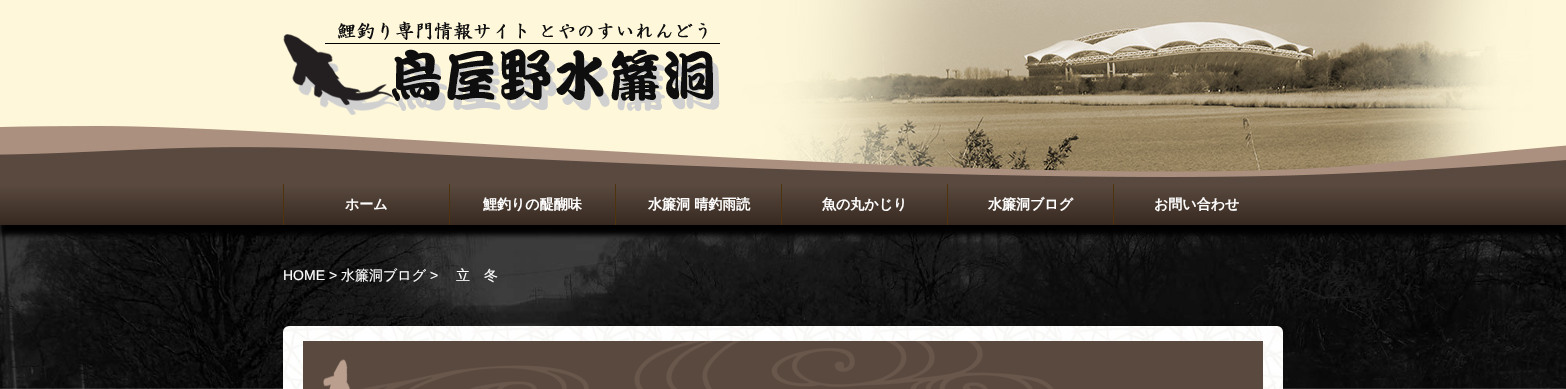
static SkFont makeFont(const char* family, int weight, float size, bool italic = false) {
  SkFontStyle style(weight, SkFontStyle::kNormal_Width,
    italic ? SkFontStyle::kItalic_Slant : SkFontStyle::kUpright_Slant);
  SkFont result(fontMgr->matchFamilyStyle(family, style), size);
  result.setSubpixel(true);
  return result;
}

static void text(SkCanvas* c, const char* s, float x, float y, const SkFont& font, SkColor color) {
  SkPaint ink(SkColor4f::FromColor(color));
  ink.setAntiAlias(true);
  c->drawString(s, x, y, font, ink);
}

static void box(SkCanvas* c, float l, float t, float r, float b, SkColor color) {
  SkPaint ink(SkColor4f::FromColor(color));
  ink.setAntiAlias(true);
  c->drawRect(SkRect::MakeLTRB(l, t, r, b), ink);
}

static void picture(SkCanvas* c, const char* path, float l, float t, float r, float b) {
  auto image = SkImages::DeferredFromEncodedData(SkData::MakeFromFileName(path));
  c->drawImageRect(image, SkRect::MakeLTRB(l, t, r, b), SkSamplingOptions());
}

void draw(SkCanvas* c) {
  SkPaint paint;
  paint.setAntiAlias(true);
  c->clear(0xffffffff);
  picture(c, "img_01.png", 0, 225, 1566, 389);
  picture(c, "img_02.png", 0, 0, 1566, 184);
  picture(c, "img_03.png", 283, 21, 720, 115);
  paint.setColor(0xff000000);
  paint.setMaskFilter(SkMaskFilter::MakeBlur(kNormal_SkBlurStyle, 2.5f));
  c->drawRect(SkRect::MakeLTRB(0, 194, 1566, 235), paint);
  paint.setMaskFilter(nullptr);
  {
    const SkColor colors[] = {0xff59493f, 0xff372920};
    const float stops[] = {0.03f, 1};
    const SkPoint ends[] = {{783, 184}, {783, 225}};
    paint.setShader(SkGradientShader::MakeLinear(ends, colors, stops, 2, SkTileMode::kClamp));
    paint.setAlpha(255);
  }
  c->drawRect(SkRect::MakeLTRB(0, 184, 1566, 225), paint);
  box(c, 283, 184, 284, 225, 0xff4e330d);
  SkFont face1 = makeFont("WenQuanYi Zen Hei", 700, 14);
  text(c, "ホーム", 345, 209, face1, 0xffffffff);
  box(c, 449, 184, 450, 225, 0xff4e330d);
  text(c, "鯉釣りの醍醐味", 483, 209, face1, 0xffffffff);
  box(c, 615, 184, 616, 225, 0xff4e330d);
  text(c, "水簾洞 晴釣雨読", 648, 209, face1, 0xffffffff);
  box(c, 781, 184, 782, 225, 0xff4e330d);
  text(c, "魚の丸かじり", 822, 209, face1, 0xffffffff);
  box(c, 947, 184, 948, 225, 0xff4e330d);
  text(c, "水簾洞ブログ", 988, 209, face1, 0xffffffff);
  box(c, 1113, 184, 1114, 225, 0xff4e330d);
  text(c, "お問い合わせ", 1154, 209, face1, 0xffffffff);
  SkFont face2 = makeFont("Liberation Sans", 400, 14);
  text(c, "HOME >", 283, 280, face2, 0xffffffff);
  SkFont face3 = makeFont("WenQuanYi Zen Hei", 500, 14);
  text(c, "水簾洞ブログ", 341, 280, face3, 0xffffffff);
  text(c, ">", 430, 280, face2, 0xffffffff);
  text(c, "立　冬", 456, 280, face3, 0xffffffff);
  picture(c, "img_04.png", 283, 326, 1283, 389);
  picture(c, "img_05.png", 303, 341, 1263, 389);
}
